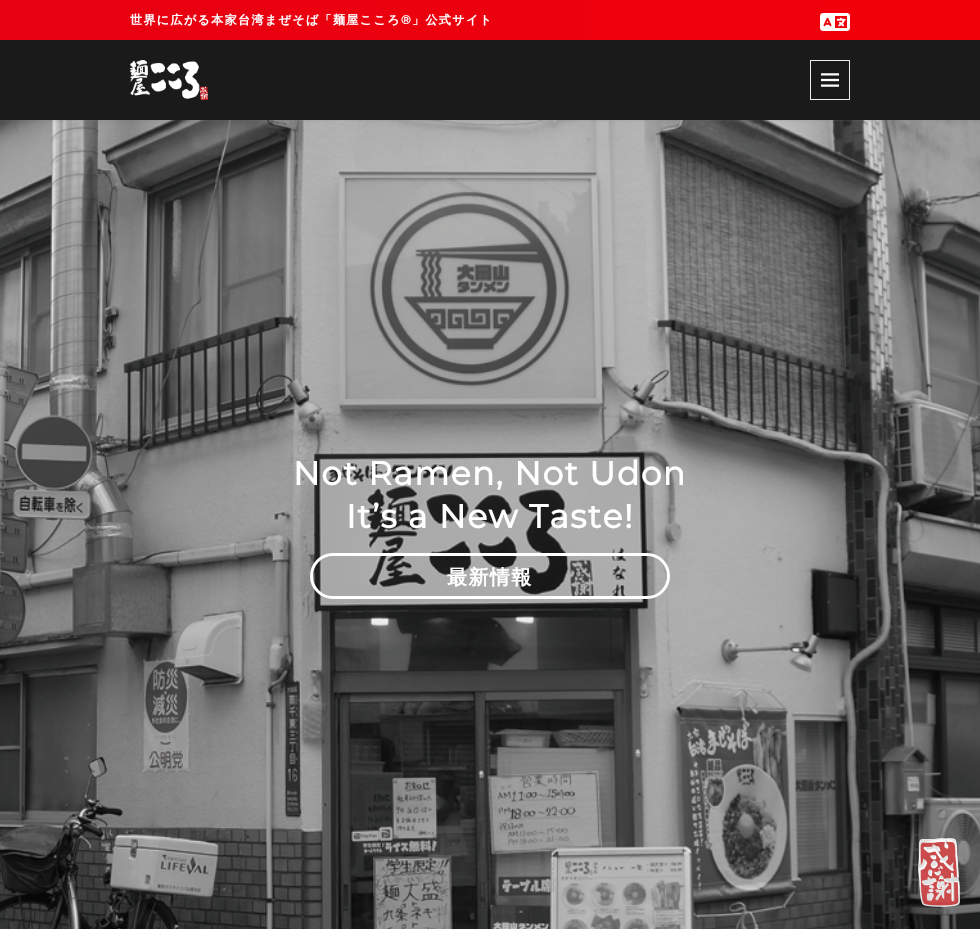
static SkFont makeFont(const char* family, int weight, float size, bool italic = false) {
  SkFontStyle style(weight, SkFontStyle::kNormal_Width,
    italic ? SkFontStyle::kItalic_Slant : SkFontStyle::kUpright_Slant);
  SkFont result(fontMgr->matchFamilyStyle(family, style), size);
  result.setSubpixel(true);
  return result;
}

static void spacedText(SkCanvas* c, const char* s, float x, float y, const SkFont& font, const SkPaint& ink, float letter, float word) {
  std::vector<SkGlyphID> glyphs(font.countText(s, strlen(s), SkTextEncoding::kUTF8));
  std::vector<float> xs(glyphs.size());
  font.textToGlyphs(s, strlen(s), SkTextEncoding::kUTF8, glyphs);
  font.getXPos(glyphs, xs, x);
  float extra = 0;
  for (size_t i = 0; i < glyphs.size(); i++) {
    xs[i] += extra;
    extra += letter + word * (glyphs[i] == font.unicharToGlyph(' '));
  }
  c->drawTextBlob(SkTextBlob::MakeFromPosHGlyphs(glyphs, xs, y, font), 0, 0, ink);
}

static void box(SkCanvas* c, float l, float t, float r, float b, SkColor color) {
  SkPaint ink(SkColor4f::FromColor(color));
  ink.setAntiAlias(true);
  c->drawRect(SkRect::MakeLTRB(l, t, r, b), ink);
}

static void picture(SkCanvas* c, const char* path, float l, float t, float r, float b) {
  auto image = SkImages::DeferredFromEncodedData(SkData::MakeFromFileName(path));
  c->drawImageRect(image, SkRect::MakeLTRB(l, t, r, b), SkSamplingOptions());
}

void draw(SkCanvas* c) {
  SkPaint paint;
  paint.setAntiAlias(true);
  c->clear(0xffffffff);
  picture(c, "img_04.png", 0, 120, 980, 929);
  paint.setColor(0x33000000);
  paint.setMaskFilter(SkMaskFilter::MakeBlur(kNormal_SkBlurStyle, 1.5f));
  c->drawRect(SkRect::MakeLTRB(0, 0, 980, 120), paint);
  paint.setMaskFilter(nullptr);
  box(c, 0, 40, 980, 120, 0xff1a1a1a);
  {
    const SkColor colors[] = {0xffff0000, 0xffe60012};
    const float stops[] = {0, 1};
    const SkPoint ends[] = {{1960, 20}, {0, 20}};
    paint.setShader(SkGradientShader::MakeLinear(ends, colors, stops, 2, SkTileMode::kClamp));
    paint.setAlpha(255);
  }
  c->drawRect(SkRect::MakeLTRB(0, 0, 980, 40), paint);
  SkFont face1 = makeFont("WenQuanYi Zen Hei", 700, 12);
  paint.setShader(nullptr);
  paint.setColor(0xffffffff);
  spacedText(c, "世界に広がる本家台湾まぜそば「麺屋こころ", 130, 24, face1, paint, 1.4f, 0);
  SkFont face2 = makeFont("Montserrat", 700, 12);
  spacedText(c, "®", 401, 24, face2, paint, 1.4f, 0);
  spacedText(c, "」公式サイト", 412, 24, face1, paint, 1.4f, 0);
  picture(c, "img_01.png", 820, 13, 850, 31);
  picture(c, "img_02.png", 130, 60, 208, 100);
  paint.setStyle(SkPaint::kStroke_Style);
  paint.setStrokeWidth(1);
  paint.setColor(0xffeeeeee);
  c->drawRect(SkRect::MakeLTRB(810.5f, 60.5f, 849.5f, 99.5f), paint);
  picture(c, "img_03.png", 821, 73, 839, 87);
  SkFont face3 = makeFont("Montserrat", 700, 33);
  paint.setStyle(SkPaint::kFill_Style);
  paint.setColor(0xffffffff);
  spacedText(c, "Not Ramen, Not Udon", 293, 485, face3, paint, 1.4f, 0);
  spacedText(c, "It’s a New Taste!", 346, 528, face3, paint, 1.4f, 0);
  paint.setStyle(SkPaint::kStroke_Style);
  paint.setStrokeWidth(3);
  c->drawRoundRect(SkRect::MakeLTRB(311.5f, 554.5f, 668.5f, 597.5f), 21.5f, 21.5f, paint);
  SkFont face4 = makeFont("WenQuanYi Zen Hei", 700, 20);
  paint.setStyle(SkPaint::kFill_Style);
  spacedText(c, "最新情報", 447, 584, face4, paint, 1.4f, 0);
  picture(c, "img_05.png", 918, 838, 960, 907);
}
